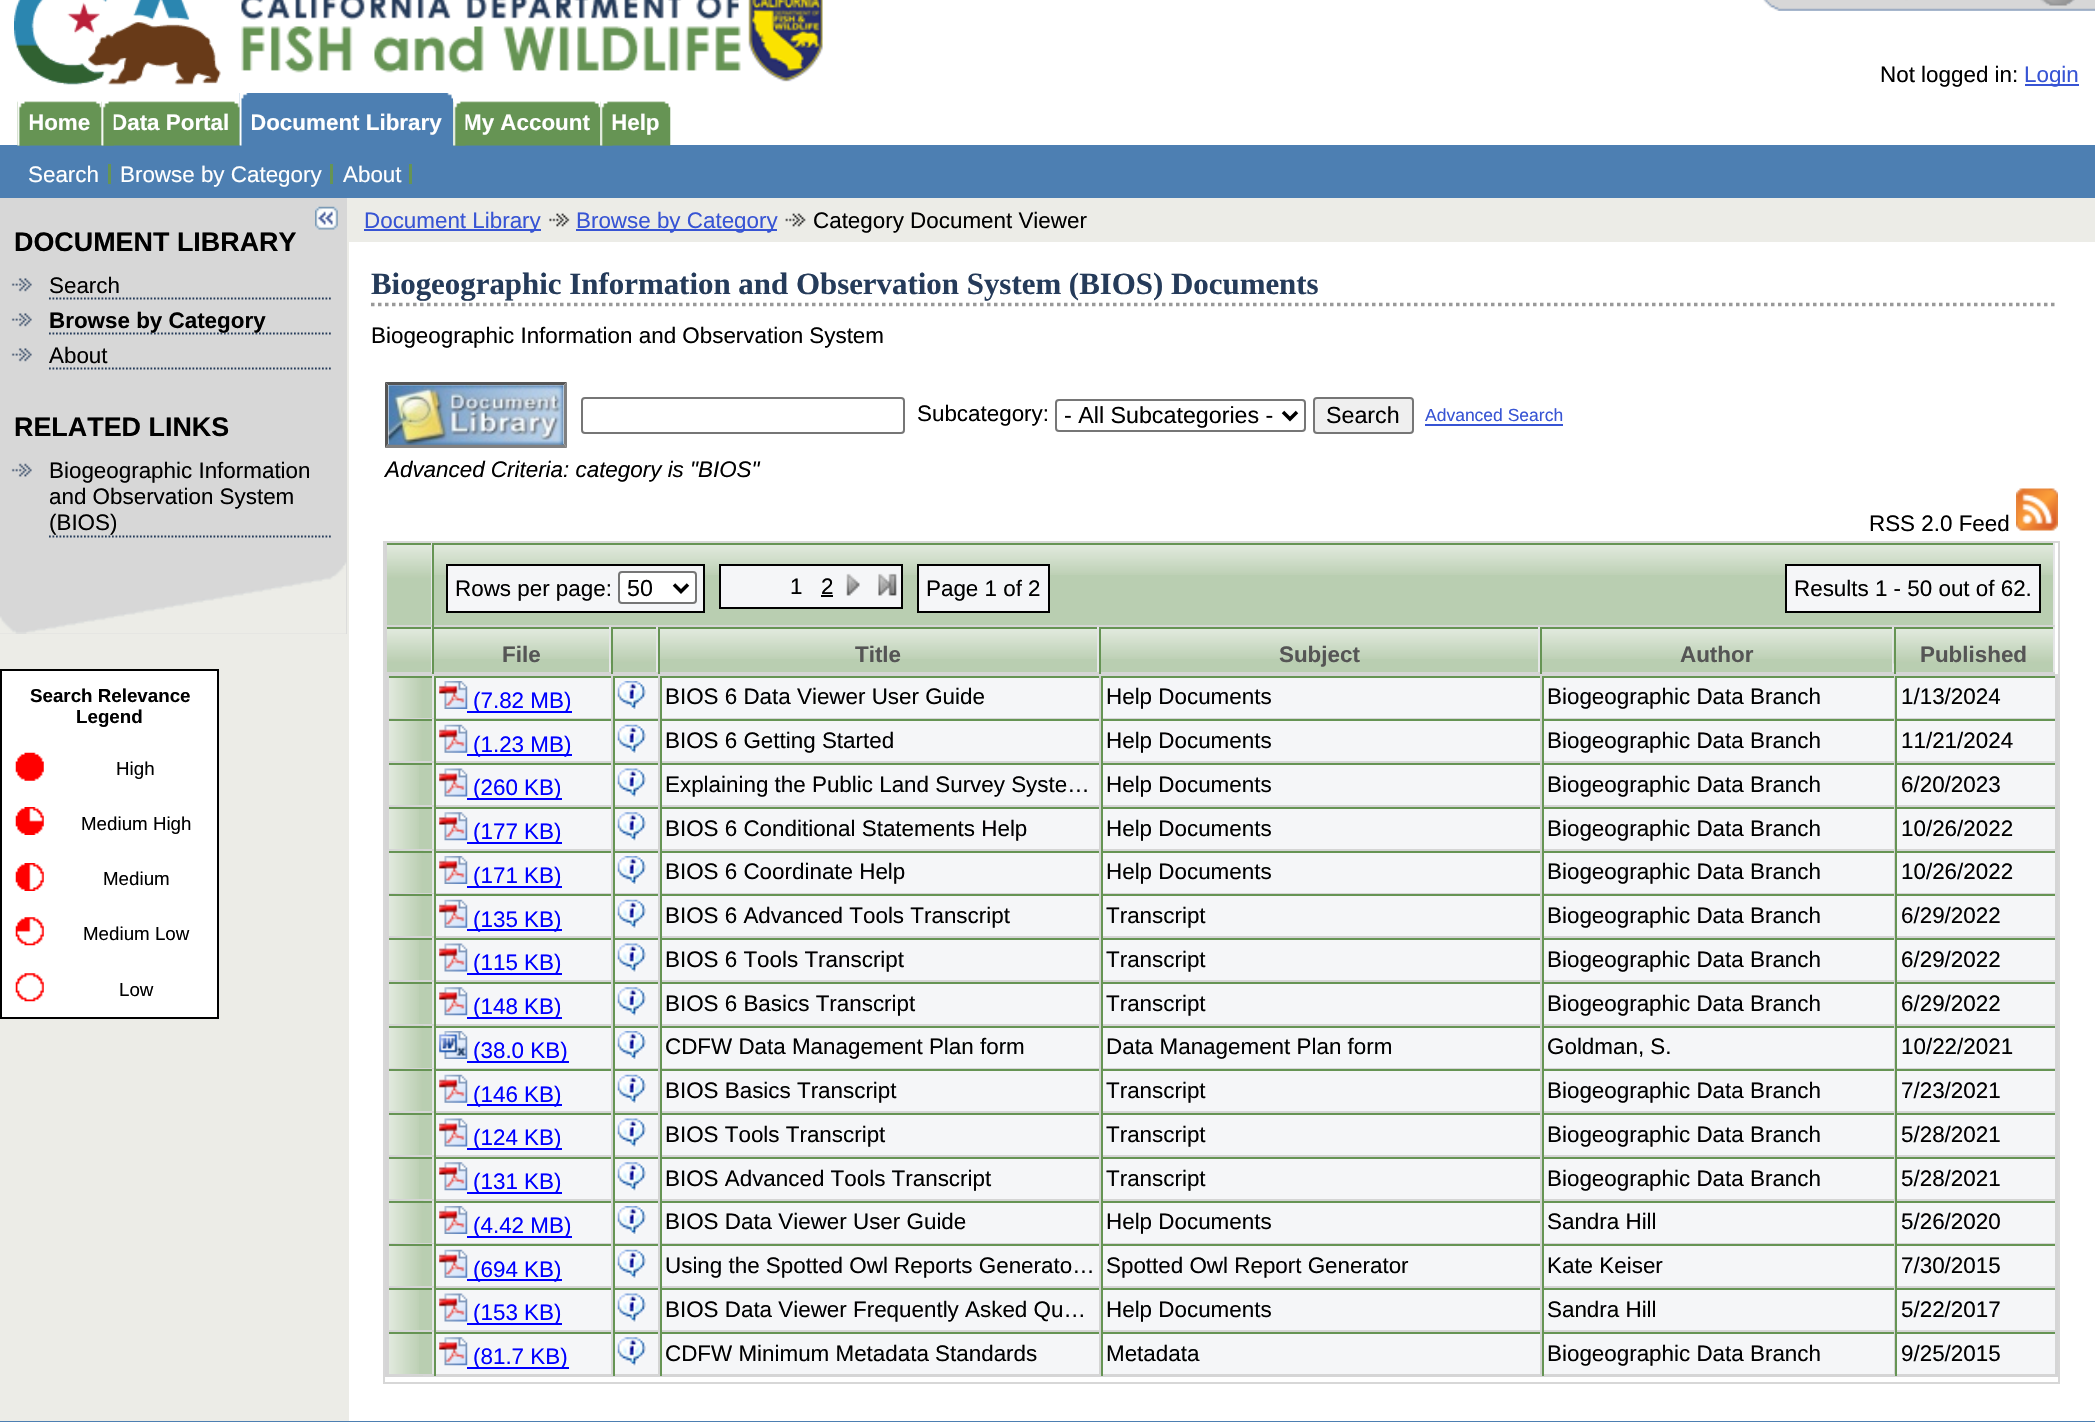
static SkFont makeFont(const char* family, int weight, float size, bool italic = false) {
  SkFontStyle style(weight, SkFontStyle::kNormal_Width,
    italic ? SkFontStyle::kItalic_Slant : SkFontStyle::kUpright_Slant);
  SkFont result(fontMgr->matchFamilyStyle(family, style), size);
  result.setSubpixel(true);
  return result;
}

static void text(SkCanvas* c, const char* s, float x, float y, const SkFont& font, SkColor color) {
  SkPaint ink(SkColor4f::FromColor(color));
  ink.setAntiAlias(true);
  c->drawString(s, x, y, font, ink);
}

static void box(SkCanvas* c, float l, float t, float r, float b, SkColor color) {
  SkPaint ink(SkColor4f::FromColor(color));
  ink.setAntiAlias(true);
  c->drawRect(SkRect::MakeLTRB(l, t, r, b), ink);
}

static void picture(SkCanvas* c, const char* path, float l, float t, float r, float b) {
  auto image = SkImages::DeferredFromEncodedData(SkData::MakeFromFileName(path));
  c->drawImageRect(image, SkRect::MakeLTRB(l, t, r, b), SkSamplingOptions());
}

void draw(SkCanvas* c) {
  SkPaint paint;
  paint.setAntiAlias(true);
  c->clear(0xffffffff);
  picture(c, "img_01.png", 14, 0, 221, 85);
  picture(c, "img_02.png", 241, 0, 823, 82);
  picture(c, "img_03.png", 1761, 0, 2095, 11);
  picture(c, "img_04.png", 2040, 0, 2075, 6);
  SkFont face1 = makeFont("Liberation Sans", 400, 22.4f);
  text(c, "Not logged in:", 1880, 82, face1, 0xff000000);
  box(c, 2025, 84, 2079, 86, 0xff3754d4);
  text(c, "Login", 2024, 82, face1, 0xff3754d4);
  box(c, 0, 145, 2095, 198, 0xff4d7fb2);
  picture(c, "img_07.png", 17, 101, 102, 146);
  picture(c, "img_09.png", 101, 101, 240, 146);
  picture(c, "img_05.png", 239, 93, 454, 146);
  SkFont face2 = makeFont("Liberation Sans", 700, 22.4f);
  text(c, "Document Library", 250, 130, face2, 0xffffffff);
  picture(c, "img_06.png", 239, 93, 252, 146);
  box(c, 108, 164, 111, 184, 0xff669454);
  text(c, "Search", 28, 182, face1, 0xffffffff);
  box(c, 330, 164, 333, 184, 0xff669454);
  text(c, "Browse by Category", 120, 182, face1, 0xffffffff);
  box(c, 409, 164, 412, 184, 0xff669454);
  text(c, "About", 343, 182, face1, 0xffffffff);
  text(c, "Home", 28, 130, face2, 0xffffffff);
  picture(c, "img_08.png", 17, 101, 30, 146);
  text(c, "Data Portal", 111, 130, face2, 0xffffffff);
  picture(c, "img_10.png", 101, 101, 114, 146);
  picture(c, "img_11.png", 453, 98, 601, 146);
  text(c, "My Account", 463, 130, face2, 0xffffffff);
  picture(c, "img_12.png", 453, 98, 466, 146);
  picture(c, "img_13.png", 600, 101, 671, 146);
  text(c, "Help", 611, 130, face2, 0xffffffff);
  picture(c, "img_14.png", 600, 101, 613, 146);
  box(c, 0, 242, 349, 1421, 0xffecece7);
  box(c, 0, 198, 347, 634, 0xffd7d7d7);
  picture(c, "img_15.png", 315, 206, 338, 230);
  picture(c, "img_16.png", 0, 562, 347, 634);
  SkFont face3 = makeFont("Liberation Sans", 700, 26.9f);
  text(c, "DOCUMENT LIBRARY", 14, 251, face3, 0xff000000);
  picture(c, "img_17.png", 11, 278, 32, 292);
  paint.setStyle(SkPaint::kStroke_Style);
  paint.setStrokeWidth(1.8f);
  paint.setColor(0xff253b5a);
  paint.setPathEffect(SkDashPathEffect::Make({{1.75f, 1.75f}}, 0));
  c->drawPath(SkPathBuilder().moveTo(49, 298.5f).lineTo(332.5f, 298.5f).detach(), paint);
  paint.setPathEffect(nullptr);
  text(c, "Search", 49, 293, face1, 0xff000000);
  picture(c, "img_17.png", 11, 313, 32, 327);
  paint.setPathEffect(SkDashPathEffect::Make({{1.75f, 1.75f}}, 0));
  c->drawPath(SkPathBuilder().moveTo(49, 333.5f).lineTo(332.5f, 333.5f).detach(), paint);
  paint.setPathEffect(nullptr);
  text(c, "Browse by Category", 49, 328, face2, 0xff000000);
  picture(c, "img_17.png", 11, 348, 32, 362);
  paint.setPathEffect(SkDashPathEffect::Make({{1.75f, 1.75f}}, 0));
  c->drawPath(SkPathBuilder().moveTo(49, 368.5f).lineTo(332.5f, 368.5f).detach(), paint);
  paint.setPathEffect(nullptr);
  text(c, "About", 49, 363, face1, 0xff000000);
  text(c, "RELATED LINKS", 14, 436, face3, 0xff000000);
  picture(c, "img_18.png", 11, 463, 32, 477);
  paint.setPathEffect(SkDashPathEffect::Make({{1.75f, 1.75f}}, 0));
  c->drawPath(SkPathBuilder().moveTo(49, 536.5f).lineTo(332.5f, 536.5f).detach(), paint);
  paint.setPathEffect(nullptr);
  text(c, "Biogeographic Information", 49, 478, face1, 0xff000000);
  text(c, "and Observation System", 49, 504, face1, 0xff000000);
  text(c, "(BIOS)", 49, 530, face1, 0xff000000);
  paint.setStyle(SkPaint::kFill_Style);
  paint.setColor(0xffffffff);
  c->drawRect(SkRect::MakeLTRB(1, 670, 218, 1018), paint);
  paint.setStyle(SkPaint::kStroke_Style);
  paint.setStrokeWidth(2);
  paint.setColor(0xff000000);
  c->drawRect(SkRect::MakeLTRB(1, 670, 218, 1018), paint);
  SkFont face4 = makeFont("Liberation Sans", 700, 18.75f);
  text(c, "Search Relevance", 30, 702, face4, 0xff000000);
  text(c, "Legend", 76, 723, face4, 0xff000000);
  picture(c, "img_19.png", 15, 752, 44, 781);
  SkFont face5 = makeFont("Liberation Sans", 400, 18.75f);
  text(c, "High", 116, 775, face5, 0xff000000);
  picture(c, "img_20.png", 15, 807, 44, 835);
  text(c, "Medium High", 81, 830, face5, 0xff000000);
  picture(c, "img_21.png", 15, 863, 44, 891);
  text(c, "Medium", 103, 885, face5, 0xff000000);
  picture(c, "img_22.png", 15, 917, 44, 946);
  text(c, "Medium Low", 83, 940, face5, 0xff000000);
  picture(c, "img_23.png", 15, 973, 44, 1002);
  text(c, "Low", 119, 996, face5, 0xff000000);
  box(c, 347, 198, 2095, 242, 0xffecece7);
  box(c, 364, 229, 541, 231, 0xff3754d4);
  text(c, "Document Library", 364, 228, face1, 0xff3754d4);
  picture(c, "img_24.png", 549, 213, 570, 227);
  box(c, 576, 229, 777, 231, 0xff3754d4);
  text(c, "Browse by Category", 576, 228, face1, 0xff3754d4);
  picture(c, "img_25.png", 785, 213, 806, 227);
  text(c, "Category Document Viewer", 813, 228, face1, 0xff000000);
  paint.setStrokeWidth(3.5f);
  paint.setColor(0xff999999);
  paint.setPathEffect(SkDashPathEffect::Make({{3.5f, 3.5f}}, 0));
  c->drawPath(SkPathBuilder().moveTo(371, 304.5f).lineTo(2054.5f, 304.5f).detach(), paint);
  paint.setPathEffect(nullptr);
  SkFont face6 = makeFont("Liberation Serif", 700, 30.9f);
  text(c, "Biogeographic Information and Observation System (BIOS)", 371, 294, face6, 0xff253b5a);
  text(c, "Documents", 1171, 294, face6, 0xff253b5a);
  text(c, "Biogeographic Information and Observation System", 371, 343, face1, 0xff000000);
  paint.setStyle(SkPaint::kFill_Style);
  paint.setColor(0xff555555);
  c->drawPath(SkPathBuilder().moveTo(385, 382).lineTo(567, 382).lineTo(564, 385).lineTo(388, 385).close().detach(), paint);
  paint.setColor(0xff808080);
  c->drawPath(SkPathBuilder().moveTo(567, 382).lineTo(567, 448).lineTo(564, 444).lineTo(564, 385).close().detach(), paint);
  c->drawPath(SkPathBuilder().moveTo(567, 448).lineTo(385, 448).lineTo(388, 444).lineTo(564, 444).close().detach(), paint);
  paint.setColor(0xff555555);
  c->drawPath(SkPathBuilder().moveTo(385, 448).lineTo(385, 382).lineTo(388, 385).lineTo(388, 444).close().detach(), paint);
  picture(c, "img_26.png", 388, 385, 564, 445);
  paint.setStyle(SkPaint::kStroke_Style);
  paint.setStrokeWidth(2);
  paint.setColor(0xff767676);
  c->drawRoundRect(SkRect::MakeLTRB(582, 398, 904, 433), 3, 3, paint);
  text(c, "Subcategory:", 917, 421, face1, 0xff000000);
  c->drawRoundRect(SkRect::MakeLTRB(1056, 400, 1305, 431), 3, 3, paint);
  paint.setStrokeWidth(3.5f);
  paint.setColor(0xff000000);
  c->drawPath(SkPathBuilder().moveTo(1283, 412).lineTo(1290, 419).lineTo(1297, 412).detach(), paint);
  SkFont face7 = makeFont("Liberation Sans", 400, 23.25f);
  text(c, "- All Subcategories -", 1064, 423, face7, 0xff000000);
  paint.setStyle(SkPaint::kFill_Style);
  paint.setColor(0xffefefef);
  c->drawRoundRect(SkRect::MakeLTRB(1314, 398, 1413, 433), 3, 3, paint);
  paint.setStyle(SkPaint::kStroke_Style);
  paint.setStrokeWidth(2);
  paint.setColor(0xff767676);
  c->drawRoundRect(SkRect::MakeLTRB(1314, 398, 1413, 433), 3, 3, paint);
  text(c, "Search", 1326, 423, face7, 0xff000000);
  SkFont face8 = makeFont("Liberation Sans", 400, 17.5f);
  text(c, "Advanced Search", 1425, 421, face8, 0xff3754d4);
  box(c, 1425, 424, 1563, 426, 0xff3754d4);
  SkFont face9 = makeFont("Liberation Sans", 400, 22.4f, true);
  text(c, "Advanced Criteria: category is \"BIOS\"", 385, 477, face9, 0xff000000);
  text(c, "RSS 2.0 Feed", 1869, 531, face1, 0xff000000);
  picture(c, "img_27.png", 2016, 488, 2058, 531);
  paint.setColor(0xffd7d7d7);
  c->drawRect(SkRect::MakeLTRB(384, 542, 2059, 1383), paint);
  box(c, 387, 579, 431, 625, 0xffb9ceb1);
  picture(c, "img_28.png", 387, 545, 431, 580);
  box(c, 385, 543, 2055, 545, 0xff669454);
  box(c, 431, 543, 432, 627, 0xffe5e6e7);
  box(c, 385, 625, 432, 627, 0xffd5d5d5);
  box(c, 385, 543, 387, 627, 0xffd5d5d5);
  box(c, 434, 575, 2053, 625, 0xffb9ceb1);
  picture(c, "img_29.png", 434, 545, 2053, 575);
  box(c, 2053, 543, 2055, 627, 0xffe5e6e7);
  box(c, 432, 625, 2055, 627, 0xffd5d5d5);
  box(c, 432, 543, 434, 627, 0xff669454);
  paint.setStyle(SkPaint::kFill_Style);
  paint.setColor(0xfff5f6f8);
  c->drawRect(SkRect::MakeLTRB(447, 565, 704, 612), paint);
  paint.setStyle(SkPaint::kStroke_Style);
  paint.setColor(0xff000000);
  c->drawRect(SkRect::MakeLTRB(447, 565, 704, 612), paint);
  text(c, "Rows per page:", 455, 596, face1, 0xff000000);
  paint.setStyle(SkPaint::kFill_Style);
  paint.setColor(0xffffffff);
  c->drawRoundRect(SkRect::MakeLTRB(619, 572, 696, 603), 3, 3, paint);
  paint.setStyle(SkPaint::kStroke_Style);
  paint.setColor(0xff767676);
  c->drawRoundRect(SkRect::MakeLTRB(619, 572, 696, 603), 3, 3, paint);
  paint.setStrokeWidth(3.5f);
  paint.setColor(0xff000000);
  c->drawPath(SkPathBuilder().moveTo(674, 584.5f).lineTo(681, 591.5f).lineTo(688, 584.5f).detach(), paint);
  text(c, "50", 627, 596, face7, 0xff000000);
  paint.setStyle(SkPaint::kFill_Style);
  paint.setColor(0xfff5f6f8);
  c->drawRect(SkRect::MakeLTRB(720, 565, 902, 608), paint);
  paint.setStyle(SkPaint::kStroke_Style);
  paint.setStrokeWidth(2);
  paint.setColor(0xff000000);
  c->drawRect(SkRect::MakeLTRB(720, 565, 902, 608), paint);
  text(c, "1", 790, 594, face1, 0xff000000);
  text(c, "2", 821, 594, face1, 0xff000000);
  box(c, 821, 595, 833, 597, 0xff000000);
  picture(c, "img_30.png", 846, 573, 860, 596);
  picture(c, "img_31.png", 878, 573, 897, 596);
  paint.setStyle(SkPaint::kFill_Style);
  paint.setColor(0xfff5f6f8);
  c->drawRect(SkRect::MakeLTRB(918, 565, 1049, 612), paint);
  paint.setStyle(SkPaint::kStroke_Style);
  paint.setColor(0xff000000);
  c->drawRect(SkRect::MakeLTRB(918, 565, 1049, 612), paint);
  text(c, "Page 1 of 2", 926, 596, face1, 0xff000000);
  paint.setStyle(SkPaint::kFill_Style);
  paint.setColor(0xfff5f6f8);
  c->drawRect(SkRect::MakeLTRB(1786, 565, 2040, 612), paint);
  paint.setStyle(SkPaint::kStroke_Style);
  paint.setColor(0xff000000);
  c->drawRect(SkRect::MakeLTRB(1786, 565, 2040, 612), paint);
  text(c, "Results 1 - 50 out of 62.", 1794, 596, face1, 0xff000000);
  box(c, 387, 663, 431, 672, 0xffb9ceb1);
  picture(c, "img_28.png", 387, 629, 431, 664);
  box(c, 385, 627, 611, 629, 0xff669454);
  box(c, 431, 627, 432, 674, 0xffe5e6e7);
  box(c, 385, 672, 432, 674, 0xffd5d5d5);
  box(c, 385, 627, 387, 674, 0xffd5d5d5);
  box(c, 613, 663, 656, 672, 0xffb9ceb1);
  box(c, 609, 627, 611, 674, 0xffe5e6e7);
  picture(c, "img_32.png", 610, 628, 656, 664);
  box(c, 611, 627, 1894, 629, 0xff669454);
  box(c, 656, 627, 658, 674, 0xffe5e6e7);
  box(c, 611, 672, 658, 674, 0xffd5d5d5);
  box(c, 611, 627, 613, 674, 0xff669454);
  box(c, 434, 659, 609, 672, 0xffb9ceb1);
  picture(c, "img_33.png", 434, 629, 609, 659);
  box(c, 432, 672, 611, 674, 0xffd5d5d5);
  box(c, 432, 627, 434, 674, 0xff669454);
  text(c, "File", 502, 662, face2, 0xff555555);
  box(c, 660, 659, 1097, 672, 0xffb9ceb1);
  picture(c, "img_34.png", 660, 629, 1097, 659);
  box(c, 1097, 627, 1099, 674, 0xffe5e6e7);
  box(c, 658, 672, 1099, 674, 0xffd5d5d5);
  box(c, 658, 627, 660, 674, 0xff669454);
  text(c, "Title", 855, 662, face2, 0xff555555);
  box(c, 1101, 659, 1538, 672, 0xffb9ceb1);
  picture(c, "img_34.png", 1101, 629, 1538, 659);
  box(c, 1538, 627, 1540, 674, 0xffe5e6e7);
  box(c, 1099, 672, 1540, 674, 0xffd5d5d5);
  box(c, 1099, 627, 1101, 674, 0xff669454);
  text(c, "Subject", 1279, 662, face2, 0xff555555);
  box(c, 1542, 659, 1892, 672, 0xffb9ceb1);
  picture(c, "img_35.png", 1542, 629, 1892, 659);
  box(c, 1892, 627, 1894, 674, 0xffe5e6e7);
  box(c, 1540, 672, 1894, 674, 0xffd5d5d5);
  box(c, 1540, 627, 1542, 674, 0xff669454);
  text(c, "Author", 1680, 662, face2, 0xff555555);
  box(c, 1896, 663, 2053, 672, 0xffb9ceb1);
  picture(c, "img_36.png", 1893, 628, 2053, 664);
  box(c, 1894, 627, 2055, 629, 0xff669454);
  box(c, 2053, 627, 2055, 674, 0xffe5e6e7);
  box(c, 1894, 672, 2055, 674, 0xffd5d5d5);
  box(c, 1894, 627, 1896, 674, 0xff669454);
  text(c, "Published", 1920, 662, face2, 0xff555555);
  paint.setColor(0xffd5d5d6);
  c->drawRect(SkRect::MakeLTRB(386, 675, 2057, 1376), paint);
  box(c, 423, 678, 432, 718, 0xffb9ceb1);
  picture(c, "img_37.png", 389, 678, 424, 718);
  box(c, 387, 676, 2056, 678, 0xff669454);
  box(c, 432, 676, 434, 719, 0xffe5e6e7);
  box(c, 387, 718, 434, 719, 0xffd5d5d5);
  box(c, 387, 676, 389, 719, 0xffd5d5d5);
  box(c, 436, 678, 611, 718, 0xfff5f6f8);
  box(c, 611, 676, 613, 719, 0xffd5d5d5);
  box(c, 434, 718, 613, 719, 0xffd5d5d5);
  box(c, 434, 676, 436, 719, 0xff669454);
  picture(c, "img_38.png", 439, 681, 468, 709);
  box(c, 467, 711, 572, 713, 0xff0000ff);
  text(c, "(7.82 MB)", 473, 708, face1, 0xff0000ff);
  box(c, 615, 678, 658, 718, 0xfff5f6f8);
  box(c, 658, 676, 660, 719, 0xffd5d5d5);
  box(c, 613, 718, 660, 719, 0xffd5d5d5);
  box(c, 613, 676, 615, 719, 0xff669454);
  picture(c, "img_39.png", 617, 681, 646, 709);
  box(c, 662, 678, 1099, 718, 0xfff5f6f8);
  box(c, 1099, 676, 1101, 719, 0xffd5d5d5);
  box(c, 660, 718, 1101, 719, 0xffd5d5d5);
  box(c, 660, 676, 662, 719, 0xff669454);
  text(c, "BIOS 6 Data Viewer User Guide", 665, 704, face1, 0xff000000);
  box(c, 1103, 678, 1540, 718, 0xfff5f6f8);
  box(c, 1540, 676, 1542, 719, 0xffd5d5d5);
  box(c, 1101, 718, 1542, 719, 0xffd5d5d5);
  box(c, 1101, 676, 1103, 719, 0xff669454);
  text(c, "Help Documents", 1106, 704, face1, 0xff000000);
  box(c, 1544, 678, 1894, 718, 0xfff5f6f8);
  box(c, 1894, 676, 1895, 719, 0xffd5d5d5);
  box(c, 1542, 718, 1895, 719, 0xffd5d5d5);
  box(c, 1542, 676, 1544, 719, 0xff669454);
  text(c, "Biogeographic Data Branch", 1547, 704, face1, 0xff000000);
  box(c, 1897, 678, 2055, 718, 0xfff5f6f8);
  box(c, 2055, 676, 2056, 719, 0xffd5d5d5);
  box(c, 1895, 718, 2056, 719, 0xffd5d5d5);
  box(c, 1895, 676, 1897, 719, 0xff669454);
  text(c, "1/13/2024", 1901, 704, face1, 0xff000000);
  box(c, 423, 721, 432, 761, 0xffb9ceb1);
  picture(c, "img_37.png", 389, 721, 424, 761);
  box(c, 387, 719, 2056, 721, 0xff669454);
  box(c, 432, 719, 434, 763, 0xffe5e6e7);
  box(c, 387, 761, 434, 763, 0xffd5d5d5);
  box(c, 387, 719, 389, 763, 0xffd5d5d5);
  box(c, 436, 721, 611, 761, 0xfff5f6f8);
  box(c, 611, 719, 613, 763, 0xffd5d5d5);
  box(c, 434, 761, 613, 763, 0xffd5d5d5);
  box(c, 434, 719, 436, 763, 0xff669454);
  picture(c, "img_40.png", 439, 724, 468, 753);
  box(c, 467, 754, 572, 756, 0xff0000ff);
  text(c, "(1.23 MB)", 473, 752, face1, 0xff0000ff);
  box(c, 615, 721, 658, 761, 0xfff5f6f8);
  box(c, 658, 719, 660, 763, 0xffd5d5d5);
  box(c, 613, 761, 660, 763, 0xffd5d5d5);
  box(c, 613, 719, 615, 763, 0xff669454);
  picture(c, "img_41.png", 617, 724, 646, 753);
  box(c, 662, 721, 1099, 761, 0xfff5f6f8);
  box(c, 1099, 719, 1101, 763, 0xffd5d5d5);
  box(c, 660, 761, 1101, 763, 0xffd5d5d5);
  box(c, 660, 719, 662, 763, 0xff669454);
  text(c, "BIOS 6 Getting Started", 665, 748, face1, 0xff000000);
  box(c, 1103, 721, 1540, 761, 0xfff5f6f8);
  box(c, 1540, 719, 1542, 763, 0xffd5d5d5);
  box(c, 1101, 761, 1542, 763, 0xffd5d5d5);
  box(c, 1101, 719, 1103, 763, 0xff669454);
  text(c, "Help Documents", 1106, 748, face1, 0xff000000);
  box(c, 1544, 721, 1894, 761, 0xfff5f6f8);
  box(c, 1894, 719, 1895, 763, 0xffd5d5d5);
  box(c, 1542, 761, 1895, 763, 0xffd5d5d5);
  box(c, 1542, 719, 1544, 763, 0xff669454);
  text(c, "Biogeographic Data Branch", 1547, 748, face1, 0xff000000);
  box(c, 1897, 721, 2055, 761, 0xfff5f6f8);
  box(c, 2055, 719, 2056, 763, 0xffd5d5d5);
  box(c, 1895, 761, 2056, 763, 0xffd5d5d5);
  box(c, 1895, 719, 1897, 763, 0xff669454);
  text(c, "11/21/2024", 1901, 748, face1, 0xff000000);
  box(c, 419, 765, 432, 805, 0xffb9ceb1);
  picture(c, "img_42.png", 389, 765, 419, 805);
  box(c, 387, 763, 2056, 765, 0xff669454);
  box(c, 432, 763, 434, 807, 0xffe5e6e7);
  box(c, 387, 805, 434, 807, 0xffd5d5d5);
  box(c, 387, 763, 389, 807, 0xffd5d5d5);
  box(c, 436, 765, 611, 805, 0xfff5f6f8);
  box(c, 611, 763, 613, 807, 0xffd5d5d5);
  box(c, 434, 805, 613, 807, 0xffd5d5d5);
  box(c, 434, 763, 436, 807, 0xff669454);
  picture(c, "img_43.png", 439, 768, 468, 797);
  box(c, 467, 798, 562, 800, 0xff0000ff);
  text(c, "(260 KB)", 473, 795, face1, 0xff0000ff);
  box(c, 615, 765, 658, 805, 0xfff5f6f8);
  box(c, 658, 763, 660, 807, 0xffd5d5d5);
  box(c, 613, 805, 660, 807, 0xffd5d5d5);
  box(c, 613, 763, 615, 807, 0xff669454);
  picture(c, "img_44.png", 617, 768, 646, 797);
  box(c, 662, 765, 1099, 805, 0xfff5f6f8);
  box(c, 1099, 763, 1101, 807, 0xffd5d5d5);
  box(c, 660, 805, 1101, 807, 0xffd5d5d5);
  box(c, 660, 763, 662, 807, 0xff669454);
  text(c, "Explaining the Public Land Survey Syste…", 665, 792, face1, 0xff000000);
  box(c, 1103, 765, 1540, 805, 0xfff5f6f8);
  box(c, 1540, 763, 1542, 807, 0xffd5d5d5);
  box(c, 1101, 805, 1542, 807, 0xffd5d5d5);
  box(c, 1101, 763, 1103, 807, 0xff669454);
  text(c, "Help Documents", 1106, 792, face1, 0xff000000);
  box(c, 1544, 765, 1894, 805, 0xfff5f6f8);
  box(c, 1894, 763, 1895, 807, 0xffd5d5d5);
  box(c, 1542, 805, 1895, 807, 0xffd5d5d5);
  box(c, 1542, 763, 1544, 807, 0xff669454);
  text(c, "Biogeographic Data Branch", 1547, 792, face1, 0xff000000);
  box(c, 1897, 765, 2055, 805, 0xfff5f6f8);
  box(c, 2055, 763, 2056, 807, 0xffd5d5d5);
  box(c, 1895, 805, 2056, 807, 0xffd5d5d5);
  box(c, 1895, 763, 1897, 807, 0xff669454);
  text(c, "6/20/2023", 1901, 792, face1, 0xff000000);
  box(c, 419, 809, 432, 849, 0xffb9ceb1);
  picture(c, "img_42.png", 389, 809, 419, 849);
  box(c, 387, 807, 2056, 809, 0xff669454);
  box(c, 432, 807, 434, 851, 0xffe5e6e7);
  box(c, 387, 849, 434, 851, 0xffd5d5d5);
  box(c, 387, 807, 389, 851, 0xffd5d5d5);
  box(c, 436, 809, 611, 849, 0xfff5f6f8);
  box(c, 611, 807, 613, 851, 0xffd5d5d5);
  box(c, 434, 849, 613, 851, 0xffd5d5d5);
  box(c, 434, 807, 436, 851, 0xff669454);
  picture(c, "img_45.png", 439, 812, 468, 841);
  box(c, 467, 842, 562, 844, 0xff0000ff);
  text(c, "(177 KB)", 473, 839, face1, 0xff0000ff);
  box(c, 615, 809, 658, 849, 0xfff5f6f8);
  box(c, 658, 807, 660, 851, 0xffd5d5d5);
  box(c, 613, 849, 660, 851, 0xffd5d5d5);
  box(c, 613, 807, 615, 851, 0xff669454);
  picture(c, "img_46.png", 617, 812, 646, 841);
  box(c, 662, 809, 1099, 849, 0xfff5f6f8);
  box(c, 1099, 807, 1101, 851, 0xffd5d5d5);
  box(c, 660, 849, 1101, 851, 0xffd5d5d5);
  box(c, 660, 807, 662, 851, 0xff669454);
  text(c, "BIOS 6 Conditional Statements Help", 665, 836, face1, 0xff000000);
  box(c, 1103, 809, 1540, 849, 0xfff5f6f8);
  box(c, 1540, 807, 1542, 851, 0xffd5d5d5);
  box(c, 1101, 849, 1542, 851, 0xffd5d5d5);
  box(c, 1101, 807, 1103, 851, 0xff669454);
  text(c, "Help Documents", 1106, 836, face1, 0xff000000);
  box(c, 1544, 809, 1894, 849, 0xfff5f6f8);
  box(c, 1894, 807, 1895, 851, 0xffd5d5d5);
  box(c, 1542, 849, 1895, 851, 0xffd5d5d5);
  box(c, 1542, 807, 1544, 851, 0xff669454);
  text(c, "Biogeographic Data Branch", 1547, 836, face1, 0xff000000);
  box(c, 1897, 809, 2055, 849, 0xfff5f6f8);
  box(c, 2055, 807, 2056, 851, 0xffd5d5d5);
  box(c, 1895, 849, 2056, 851, 0xffd5d5d5);
  box(c, 1895, 807, 1897, 851, 0xff669454);
  text(c, "10/26/2022", 1901, 836, face1, 0xff000000);
  box(c, 423, 853, 432, 893, 0xffb9ceb1);
  picture(c, "img_47.png", 388, 850, 424, 893);
  box(c, 387, 851, 2056, 853, 0xff669454);
  box(c, 432, 851, 434, 894, 0xffe5e6e7);
  box(c, 387, 893, 434, 894, 0xffd5d5d5);
  box(c, 387, 851, 389, 894, 0xffd5d5d5);
  box(c, 436, 853, 611, 893, 0xfff5f6f8);
  box(c, 611, 851, 613, 894, 0xffd5d5d5);
  box(c, 434, 893, 613, 894, 0xffd5d5d5);
  box(c, 434, 851, 436, 894, 0xff669454);
  picture(c, "img_38.png", 439, 856, 468, 884);
  box(c, 467, 886, 562, 888, 0xff0000ff);
  text(c, "(171 KB)", 473, 883, face1, 0xff0000ff);
  box(c, 615, 853, 658, 893, 0xfff5f6f8);
  box(c, 658, 851, 660, 894, 0xffd5d5d5);
  box(c, 613, 893, 660, 894, 0xffd5d5d5);
  box(c, 613, 851, 615, 894, 0xff669454);
  picture(c, "img_39.png", 617, 856, 646, 884);
  box(c, 662, 853, 1099, 893, 0xfff5f6f8);
  box(c, 1099, 851, 1101, 894, 0xffd5d5d5);
  box(c, 660, 893, 1101, 894, 0xffd5d5d5);
  box(c, 660, 851, 662, 894, 0xff669454);
  text(c, "BIOS 6 Coordinate Help", 665, 879, face1, 0xff000000);
  box(c, 1103, 853, 1540, 893, 0xfff5f6f8);
  box(c, 1540, 851, 1542, 894, 0xffd5d5d5);
  box(c, 1101, 893, 1542, 894, 0xffd5d5d5);
  box(c, 1101, 851, 1103, 894, 0xff669454);
  text(c, "Help Documents", 1106, 879, face1, 0xff000000);
  box(c, 1544, 853, 1894, 893, 0xfff5f6f8);
  box(c, 1894, 851, 1895, 894, 0xffd5d5d5);
  box(c, 1542, 893, 1895, 894, 0xffd5d5d5);
  box(c, 1542, 851, 1544, 894, 0xff669454);
  text(c, "Biogeographic Data Branch", 1547, 879, face1, 0xff000000);
  box(c, 1897, 853, 2055, 893, 0xfff5f6f8);
  box(c, 2055, 851, 2056, 894, 0xffd5d5d5);
  box(c, 1895, 893, 2056, 894, 0xffd5d5d5);
  box(c, 1895, 851, 1897, 894, 0xff669454);
  text(c, "10/26/2022", 1901, 879, face1, 0xff000000);
  box(c, 423, 896, 432, 936, 0xffb9ceb1);
  picture(c, "img_37.png", 389, 896, 424, 936);
  box(c, 387, 894, 2056, 896, 0xff669454);
  box(c, 432, 894, 434, 938, 0xffe5e6e7);
  box(c, 387, 936, 434, 938, 0xffd5d5d5);
  box(c, 387, 894, 389, 938, 0xffd5d5d5);
  box(c, 436, 896, 611, 936, 0xfff5f6f8);
  box(c, 611, 894, 613, 938, 0xffd5d5d5);
  box(c, 434, 936, 613, 938, 0xffd5d5d5);
  box(c, 434, 894, 436, 938, 0xff669454);
  picture(c, "img_40.png", 439, 899, 468, 928);
  box(c, 467, 929, 562, 931, 0xff0000ff);
  text(c, "(135 KB)", 473, 927, face1, 0xff0000ff);
  box(c, 615, 896, 658, 936, 0xfff5f6f8);
  box(c, 658, 894, 660, 938, 0xffd5d5d5);
  box(c, 613, 936, 660, 938, 0xffd5d5d5);
  box(c, 613, 894, 615, 938, 0xff669454);
  picture(c, "img_41.png", 617, 899, 646, 928);
  box(c, 662, 896, 1099, 936, 0xfff5f6f8);
  box(c, 1099, 894, 1101, 938, 0xffd5d5d5);
  box(c, 660, 936, 1101, 938, 0xffd5d5d5);
  box(c, 660, 894, 662, 938, 0xff669454);
  text(c, "BIOS 6 Advanced Tools Transcript", 665, 923, face1, 0xff000000);
  box(c, 1103, 896, 1540, 936, 0xfff5f6f8);
  box(c, 1540, 894, 1542, 938, 0xffd5d5d5);
  box(c, 1101, 936, 1542, 938, 0xffd5d5d5);
  box(c, 1101, 894, 1103, 938, 0xff669454);
  text(c, "Transcript", 1106, 923, face1, 0xff000000);
  box(c, 1544, 896, 1894, 936, 0xfff5f6f8);
  box(c, 1894, 894, 1895, 938, 0xffd5d5d5);
  box(c, 1542, 936, 1895, 938, 0xffd5d5d5);
  box(c, 1542, 894, 1544, 938, 0xff669454);
  text(c, "Biogeographic Data Branch", 1547, 923, face1, 0xff000000);
  box(c, 1897, 896, 2055, 936, 0xfff5f6f8);
  box(c, 2055, 894, 2056, 938, 0xffd5d5d5);
  box(c, 1895, 936, 2056, 938, 0xffd5d5d5);
  box(c, 1895, 894, 1897, 938, 0xff669454);
  text(c, "6/29/2022", 1901, 923, face1, 0xff000000);
  box(c, 419, 940, 432, 980, 0xffb9ceb1);
  picture(c, "img_42.png", 389, 940, 419, 980);
  box(c, 387, 938, 2056, 940, 0xff669454);
  box(c, 432, 938, 434, 982, 0xffe5e6e7);
  box(c, 387, 980, 434, 982, 0xffd5d5d5);
  box(c, 387, 938, 389, 982, 0xffd5d5d5);
  box(c, 436, 940, 611, 980, 0xfff5f6f8);
  box(c, 611, 938, 613, 982, 0xffd5d5d5);
  box(c, 434, 980, 613, 982, 0xffd5d5d5);
  box(c, 434, 938, 436, 982, 0xff669454);
  picture(c, "img_43.png", 439, 943, 468, 972);
  box(c, 467, 973, 562, 975, 0xff0000ff);
  text(c, "(115 KB)", 473, 970, face1, 0xff0000ff);
  box(c, 615, 940, 658, 980, 0xfff5f6f8);
  box(c, 658, 938, 660, 982, 0xffd5d5d5);
  box(c, 613, 980, 660, 982, 0xffd5d5d5);
  box(c, 613, 938, 615, 982, 0xff669454);
  picture(c, "img_44.png", 617, 943, 646, 972);
  box(c, 662, 940, 1099, 980, 0xfff5f6f8);
  box(c, 1099, 938, 1101, 982, 0xffd5d5d5);
  box(c, 660, 980, 1101, 982, 0xffd5d5d5);
  box(c, 660, 938, 662, 982, 0xff669454);
  text(c, "BIOS 6 Tools Transcript", 665, 967, face1, 0xff000000);
  box(c, 1103, 940, 1540, 980, 0xfff5f6f8);
  box(c, 1540, 938, 1542, 982, 0xffd5d5d5);
  box(c, 1101, 980, 1542, 982, 0xffd5d5d5);
  box(c, 1101, 938, 1103, 982, 0xff669454);
  text(c, "Transcript", 1106, 967, face1, 0xff000000);
  box(c, 1544, 940, 1894, 980, 0xfff5f6f8);
  box(c, 1894, 938, 1895, 982, 0xffd5d5d5);
  box(c, 1542, 980, 1895, 982, 0xffd5d5d5);
  box(c, 1542, 938, 1544, 982, 0xff669454);
  text(c, "Biogeographic Data Branch", 1547, 967, face1, 0xff000000);
  box(c, 1897, 940, 2055, 980, 0xfff5f6f8);
  box(c, 2055, 938, 2056, 982, 0xffd5d5d5);
  box(c, 1895, 980, 2056, 982, 0xffd5d5d5);
  box(c, 1895, 938, 1897, 982, 0xff669454);
  text(c, "6/29/2022", 1901, 967, face1, 0xff000000);
  box(c, 419, 984, 432, 1024, 0xffb9ceb1);
  picture(c, "img_42.png", 389, 984, 419, 1024);
  box(c, 387, 982, 2056, 984, 0xff669454);
  box(c, 432, 982, 434, 1026, 0xffe5e6e7);
  box(c, 387, 1024, 434, 1026, 0xffd5d5d5);
  box(c, 387, 982, 389, 1026, 0xffd5d5d5);
  box(c, 436, 984, 611, 1024, 0xfff5f6f8);
  box(c, 611, 982, 613, 1026, 0xffd5d5d5);
  box(c, 434, 1024, 613, 1026, 0xffd5d5d5);
  box(c, 434, 982, 436, 1026, 0xff669454);
  picture(c, "img_45.png", 439, 987, 468, 1016);
  box(c, 467, 1017, 562, 1019, 0xff0000ff);
  text(c, "(148 KB)", 473, 1014, face1, 0xff0000ff);
  box(c, 615, 984, 658, 1024, 0xfff5f6f8);
  box(c, 658, 982, 660, 1026, 0xffd5d5d5);
  box(c, 613, 1024, 660, 1026, 0xffd5d5d5);
  box(c, 613, 982, 615, 1026, 0xff669454);
  picture(c, "img_46.png", 617, 987, 646, 1016);
  box(c, 662, 984, 1099, 1024, 0xfff5f6f8);
  box(c, 1099, 982, 1101, 1026, 0xffd5d5d5);
  box(c, 660, 1024, 1101, 1026, 0xffd5d5d5);
  box(c, 660, 982, 662, 1026, 0xff669454);
  text(c, "BIOS 6 Basics Transcript", 665, 1011, face1, 0xff000000);
  box(c, 1103, 984, 1540, 1024, 0xfff5f6f8);
  box(c, 1540, 982, 1542, 1026, 0xffd5d5d5);
  box(c, 1101, 1024, 1542, 1026, 0xffd5d5d5);
  box(c, 1101, 982, 1103, 1026, 0xff669454);
  text(c, "Transcript", 1106, 1011, face1, 0xff000000);
  box(c, 1544, 984, 1894, 1024, 0xfff5f6f8);
  box(c, 1894, 982, 1895, 1026, 0xffd5d5d5);
  box(c, 1542, 1024, 1895, 1026, 0xffd5d5d5);
  box(c, 1542, 982, 1544, 1026, 0xff669454);
  text(c, "Biogeographic Data Branch", 1547, 1011, face1, 0xff000000);
  box(c, 1897, 984, 2055, 1024, 0xfff5f6f8);
  box(c, 2055, 982, 2056, 1026, 0xffd5d5d5);
  box(c, 1895, 1024, 2056, 1026, 0xffd5d5d5);
  box(c, 1895, 982, 1897, 1026, 0xff669454);
  text(c, "6/29/2022", 1901, 1011, face1, 0xff000000);
  box(c, 423, 1028, 432, 1068, 0xffb9ceb1);
  picture(c, "img_47.png", 388, 1025, 424, 1068);
  box(c, 387, 1026, 2056, 1028, 0xff669454);
  box(c, 432, 1026, 434, 1069, 0xffe5e6e7);
  box(c, 387, 1068, 434, 1069, 0xffd5d5d5);
  box(c, 387, 1026, 389, 1069, 0xffd5d5d5);
  box(c, 436, 1028, 611, 1068, 0xfff5f6f8);
  box(c, 611, 1026, 613, 1069, 0xffd5d5d5);
  box(c, 434, 1068, 613, 1069, 0xffd5d5d5);
  box(c, 434, 1026, 436, 1069, 0xff669454);
  picture(c, "img_48.png", 439, 1031, 468, 1059);
  box(c, 467, 1061, 569, 1063, 0xff0000ff);
  text(c, "(38.0 KB)", 473, 1058, face1, 0xff0000ff);
  box(c, 615, 1028, 658, 1068, 0xfff5f6f8);
  box(c, 658, 1026, 660, 1069, 0xffd5d5d5);
  box(c, 613, 1068, 660, 1069, 0xffd5d5d5);
  box(c, 613, 1026, 615, 1069, 0xff669454);
  picture(c, "img_39.png", 617, 1031, 646, 1059);
  box(c, 662, 1028, 1099, 1068, 0xfff5f6f8);
  box(c, 1099, 1026, 1101, 1069, 0xffd5d5d5);
  box(c, 660, 1068, 1101, 1069, 0xffd5d5d5);
  box(c, 660, 1026, 662, 1069, 0xff669454);
  text(c, "CDFW Data Management Plan form", 665, 1054, face1, 0xff000000);
  box(c, 1103, 1028, 1540, 1068, 0xfff5f6f8);
  box(c, 1540, 1026, 1542, 1069, 0xffd5d5d5);
  box(c, 1101, 1068, 1542, 1069, 0xffd5d5d5);
  box(c, 1101, 1026, 1103, 1069, 0xff669454);
  text(c, "Data Management Plan form", 1106, 1054, face1, 0xff000000);
  box(c, 1544, 1028, 1894, 1068, 0xfff5f6f8);
  box(c, 1894, 1026, 1895, 1069, 0xffd5d5d5);
  box(c, 1542, 1068, 1895, 1069, 0xffd5d5d5);
  box(c, 1542, 1026, 1544, 1069, 0xff669454);
  text(c, "Goldman, S.", 1547, 1054, face1, 0xff000000);
  box(c, 1897, 1028, 2055, 1068, 0xfff5f6f8);
  box(c, 2055, 1026, 2056, 1069, 0xffd5d5d5);
  box(c, 1895, 1068, 2056, 1069, 0xffd5d5d5);
  box(c, 1895, 1026, 1897, 1069, 0xff669454);
  text(c, "10/22/2021", 1901, 1054, face1, 0xff000000);
  box(c, 423, 1071, 432, 1111, 0xffb9ceb1);
  picture(c, "img_37.png", 389, 1071, 424, 1111);
  box(c, 387, 1069, 2056, 1071, 0xff669454);
  box(c, 432, 1069, 434, 1113, 0xffe5e6e7);
  box(c, 387, 1111, 434, 1113, 0xffd5d5d5);
  box(c, 387, 1069, 389, 1113, 0xffd5d5d5);
  box(c, 436, 1071, 611, 1111, 0xfff5f6f8);
  box(c, 611, 1069, 613, 1113, 0xffd5d5d5);
  box(c, 434, 1111, 613, 1113, 0xffd5d5d5);
  box(c, 434, 1069, 436, 1113, 0xff669454);
  picture(c, "img_40.png", 439, 1074, 468, 1103);
  box(c, 467, 1104, 562, 1106, 0xff0000ff);
  text(c, "(146 KB)", 473, 1102, face1, 0xff0000ff);
  box(c, 615, 1071, 658, 1111, 0xfff5f6f8);
  box(c, 658, 1069, 660, 1113, 0xffd5d5d5);
  box(c, 613, 1111, 660, 1113, 0xffd5d5d5);
  box(c, 613, 1069, 615, 1113, 0xff669454);
  picture(c, "img_41.png", 617, 1074, 646, 1103);
  box(c, 662, 1071, 1099, 1111, 0xfff5f6f8);
  box(c, 1099, 1069, 1101, 1113, 0xffd5d5d5);
  box(c, 660, 1111, 1101, 1113, 0xffd5d5d5);
  box(c, 660, 1069, 662, 1113, 0xff669454);
  text(c, "BIOS Basics Transcript", 665, 1098, face1, 0xff000000);
  box(c, 1103, 1071, 1540, 1111, 0xfff5f6f8);
  box(c, 1540, 1069, 1542, 1113, 0xffd5d5d5);
  box(c, 1101, 1111, 1542, 1113, 0xffd5d5d5);
  box(c, 1101, 1069, 1103, 1113, 0xff669454);
  text(c, "Transcript", 1106, 1098, face1, 0xff000000);
  box(c, 1544, 1071, 1894, 1111, 0xfff5f6f8);
  box(c, 1894, 1069, 1895, 1113, 0xffd5d5d5);
  box(c, 1542, 1111, 1895, 1113, 0xffd5d5d5);
  box(c, 1542, 1069, 1544, 1113, 0xff669454);
  text(c, "Biogeographic Data Branch", 1547, 1098, face1, 0xff000000);
  box(c, 1897, 1071, 2055, 1111, 0xfff5f6f8);
  box(c, 2055, 1069, 2056, 1113, 0xffd5d5d5);
  box(c, 1895, 1111, 2056, 1113, 0xffd5d5d5);
  box(c, 1895, 1069, 1897, 1113, 0xff669454);
  text(c, "7/23/2021", 1901, 1098, face1, 0xff000000);
  box(c, 419, 1115, 432, 1155, 0xffb9ceb1);
  picture(c, "img_42.png", 389, 1115, 419, 1155);
  box(c, 387, 1113, 2056, 1115, 0xff669454);
  box(c, 432, 1113, 434, 1157, 0xffe5e6e7);
  box(c, 387, 1155, 434, 1157, 0xffd5d5d5);
  box(c, 387, 1113, 389, 1157, 0xffd5d5d5);
  box(c, 436, 1115, 611, 1155, 0xfff5f6f8);
  box(c, 611, 1113, 613, 1157, 0xffd5d5d5);
  box(c, 434, 1155, 613, 1157, 0xffd5d5d5);
  box(c, 434, 1113, 436, 1157, 0xff669454);
  picture(c, "img_43.png", 439, 1118, 468, 1147);
  box(c, 467, 1148, 562, 1150, 0xff0000ff);
  text(c, "(124 KB)", 473, 1145, face1, 0xff0000ff);
  box(c, 615, 1115, 658, 1155, 0xfff5f6f8);
  box(c, 658, 1113, 660, 1157, 0xffd5d5d5);
  box(c, 613, 1155, 660, 1157, 0xffd5d5d5);
  box(c, 613, 1113, 615, 1157, 0xff669454);
  picture(c, "img_44.png", 617, 1118, 646, 1147);
  box(c, 662, 1115, 1099, 1155, 0xfff5f6f8);
  box(c, 1099, 1113, 1101, 1157, 0xffd5d5d5);
  box(c, 660, 1155, 1101, 1157, 0xffd5d5d5);
  box(c, 660, 1113, 662, 1157, 0xff669454);
  text(c, "BIOS Tools Transcript", 665, 1142, face1, 0xff000000);
  box(c, 1103, 1115, 1540, 1155, 0xfff5f6f8);
  box(c, 1540, 1113, 1542, 1157, 0xffd5d5d5);
  box(c, 1101, 1155, 1542, 1157, 0xffd5d5d5);
  box(c, 1101, 1113, 1103, 1157, 0xff669454);
  text(c, "Transcript", 1106, 1142, face1, 0xff000000);
  box(c, 1544, 1115, 1894, 1155, 0xfff5f6f8);
  box(c, 1894, 1113, 1895, 1157, 0xffd5d5d5);
  box(c, 1542, 1155, 1895, 1157, 0xffd5d5d5);
  box(c, 1542, 1113, 1544, 1157, 0xff669454);
  text(c, "Biogeographic Data Branch", 1547, 1142, face1, 0xff000000);
  box(c, 1897, 1115, 2055, 1155, 0xfff5f6f8);
  box(c, 2055, 1113, 2056, 1157, 0xffd5d5d5);
  box(c, 1895, 1155, 2056, 1157, 0xffd5d5d5);
  box(c, 1895, 1113, 1897, 1157, 0xff669454);
  text(c, "5/28/2021", 1901, 1142, face1, 0xff000000);
  box(c, 419, 1159, 432, 1199, 0xffb9ceb1);
  picture(c, "img_42.png", 389, 1159, 419, 1199);
  box(c, 387, 1157, 2056, 1159, 0xff669454);
  box(c, 432, 1157, 434, 1201, 0xffe5e6e7);
  box(c, 387, 1199, 434, 1201, 0xffd5d5d5);
  box(c, 387, 1157, 389, 1201, 0xffd5d5d5);
  box(c, 436, 1159, 611, 1199, 0xfff5f6f8);
  box(c, 611, 1157, 613, 1201, 0xffd5d5d5);
  box(c, 434, 1199, 613, 1201, 0xffd5d5d5);
  box(c, 434, 1157, 436, 1201, 0xff669454);
  picture(c, "img_45.png", 439, 1162, 468, 1191);
  box(c, 467, 1192, 562, 1194, 0xff0000ff);
  text(c, "(131 KB)", 473, 1189, face1, 0xff0000ff);
  box(c, 615, 1159, 658, 1199, 0xfff5f6f8);
  box(c, 658, 1157, 660, 1201, 0xffd5d5d5);
  box(c, 613, 1199, 660, 1201, 0xffd5d5d5);
  box(c, 613, 1157, 615, 1201, 0xff669454);
  picture(c, "img_46.png", 617, 1162, 646, 1191);
  box(c, 662, 1159, 1099, 1199, 0xfff5f6f8);
  box(c, 1099, 1157, 1101, 1201, 0xffd5d5d5);
  box(c, 660, 1199, 1101, 1201, 0xffd5d5d5);
  box(c, 660, 1157, 662, 1201, 0xff669454);
  text(c, "BIOS Advanced Tools Transcript", 665, 1186, face1, 0xff000000);
  box(c, 1103, 1159, 1540, 1199, 0xfff5f6f8);
  box(c, 1540, 1157, 1542, 1201, 0xffd5d5d5);
  box(c, 1101, 1199, 1542, 1201, 0xffd5d5d5);
  box(c, 1101, 1157, 1103, 1201, 0xff669454);
  text(c, "Transcript", 1106, 1186, face1, 0xff000000);
  box(c, 1544, 1159, 1894, 1199, 0xfff5f6f8);
  box(c, 1894, 1157, 1895, 1201, 0xffd5d5d5);
  box(c, 1542, 1199, 1895, 1201, 0xffd5d5d5);
  box(c, 1542, 1157, 1544, 1201, 0xff669454);
  text(c, "Biogeographic Data Branch", 1547, 1186, face1, 0xff000000);
  box(c, 1897, 1159, 2055, 1199, 0xfff5f6f8);
  box(c, 2055, 1157, 2056, 1201, 0xffd5d5d5);
  box(c, 1895, 1199, 2056, 1201, 0xffd5d5d5);
  box(c, 1895, 1157, 1897, 1201, 0xff669454);
  text(c, "5/28/2021", 1901, 1186, face1, 0xff000000);
  box(c, 423, 1203, 432, 1243, 0xffb9ceb1);
  picture(c, "img_47.png", 388, 1200, 424, 1243);
  box(c, 387, 1201, 2056, 1203, 0xff669454);
  box(c, 432, 1201, 434, 1244, 0xffe5e6e7);
  box(c, 387, 1243, 434, 1244, 0xffd5d5d5);
  box(c, 387, 1201, 389, 1244, 0xffd5d5d5);
  box(c, 436, 1203, 611, 1243, 0xfff5f6f8);
  box(c, 611, 1201, 613, 1244, 0xffd5d5d5);
  box(c, 434, 1243, 613, 1244, 0xffd5d5d5);
  box(c, 434, 1201, 436, 1244, 0xff669454);
  picture(c, "img_38.png", 439, 1206, 468, 1234);
  box(c, 467, 1236, 572, 1238, 0xff0000ff);
  text(c, "(4.42 MB)", 473, 1233, face1, 0xff0000ff);
  box(c, 615, 1203, 658, 1243, 0xfff5f6f8);
  box(c, 658, 1201, 660, 1244, 0xffd5d5d5);
  box(c, 613, 1243, 660, 1244, 0xffd5d5d5);
  box(c, 613, 1201, 615, 1244, 0xff669454);
  picture(c, "img_39.png", 617, 1206, 646, 1234);
  box(c, 662, 1203, 1099, 1243, 0xfff5f6f8);
  box(c, 1099, 1201, 1101, 1244, 0xffd5d5d5);
  box(c, 660, 1243, 1101, 1244, 0xffd5d5d5);
  box(c, 660, 1201, 662, 1244, 0xff669454);
  text(c, "BIOS Data Viewer User Guide", 665, 1229, face1, 0xff000000);
  box(c, 1103, 1203, 1540, 1243, 0xfff5f6f8);
  box(c, 1540, 1201, 1542, 1244, 0xffd5d5d5);
  box(c, 1101, 1243, 1542, 1244, 0xffd5d5d5);
  box(c, 1101, 1201, 1103, 1244, 0xff669454);
  text(c, "Help Documents", 1106, 1229, face1, 0xff000000);
  box(c, 1544, 1203, 1894, 1243, 0xfff5f6f8);
  box(c, 1894, 1201, 1895, 1244, 0xffd5d5d5);
  box(c, 1542, 1243, 1895, 1244, 0xffd5d5d5);
  box(c, 1542, 1201, 1544, 1244, 0xff669454);
  text(c, "Sandra Hill", 1547, 1229, face1, 0xff000000);
  box(c, 1897, 1203, 2055, 1243, 0xfff5f6f8);
  box(c, 2055, 1201, 2056, 1244, 0xffd5d5d5);
  box(c, 1895, 1243, 2056, 1244, 0xffd5d5d5);
  box(c, 1895, 1201, 1897, 1244, 0xff669454);
  text(c, "5/26/2020", 1901, 1229, face1, 0xff000000);
  box(c, 423, 1246, 432, 1286, 0xffb9ceb1);
  picture(c, "img_37.png", 389, 1246, 424, 1286);
  box(c, 387, 1244, 2056, 1246, 0xff669454);
  box(c, 432, 1244, 434, 1288, 0xffe5e6e7);
  box(c, 387, 1286, 434, 1288, 0xffd5d5d5);
  box(c, 387, 1244, 389, 1288, 0xffd5d5d5);
  box(c, 436, 1246, 611, 1286, 0xfff5f6f8);
  box(c, 611, 1244, 613, 1288, 0xffd5d5d5);
  box(c, 434, 1286, 613, 1288, 0xffd5d5d5);
  box(c, 434, 1244, 436, 1288, 0xff669454);
  picture(c, "img_40.png", 439, 1249, 468, 1278);
  box(c, 467, 1279, 562, 1281, 0xff0000ff);
  text(c, "(694 KB)", 473, 1277, face1, 0xff0000ff);
  box(c, 615, 1246, 658, 1286, 0xfff5f6f8);
  box(c, 658, 1244, 660, 1288, 0xffd5d5d5);
  box(c, 613, 1286, 660, 1288, 0xffd5d5d5);
  box(c, 613, 1244, 615, 1288, 0xff669454);
  picture(c, "img_41.png", 617, 1249, 646, 1278);
  box(c, 662, 1246, 1099, 1286, 0xfff5f6f8);
  box(c, 1099, 1244, 1101, 1288, 0xffd5d5d5);
  box(c, 660, 1286, 1101, 1288, 0xffd5d5d5);
  box(c, 660, 1244, 662, 1288, 0xff669454);
  text(c, "Using the Spotted Owl Reports Generato…", 665, 1273, face1, 0xff000000);
  box(c, 1103, 1246, 1540, 1286, 0xfff5f6f8);
  box(c, 1540, 1244, 1542, 1288, 0xffd5d5d5);
  box(c, 1101, 1286, 1542, 1288, 0xffd5d5d5);
  box(c, 1101, 1244, 1103, 1288, 0xff669454);
  text(c, "Spotted Owl Report Generator", 1106, 1273, face1, 0xff000000);
  box(c, 1544, 1246, 1894, 1286, 0xfff5f6f8);
  box(c, 1894, 1244, 1895, 1288, 0xffd5d5d5);
  box(c, 1542, 1286, 1895, 1288, 0xffd5d5d5);
  box(c, 1542, 1244, 1544, 1288, 0xff669454);
  text(c, "Kate Keiser", 1547, 1273, face1, 0xff000000);
  box(c, 1897, 1246, 2055, 1286, 0xfff5f6f8);
  box(c, 2055, 1244, 2056, 1288, 0xffd5d5d5);
  box(c, 1895, 1286, 2056, 1288, 0xffd5d5d5);
  box(c, 1895, 1244, 1897, 1288, 0xff669454);
  text(c, "7/30/2015", 1901, 1273, face1, 0xff000000);
  box(c, 419, 1290, 432, 1330, 0xffb9ceb1);
  picture(c, "img_42.png", 389, 1290, 419, 1330);
  box(c, 387, 1288, 2056, 1290, 0xff669454);
  box(c, 432, 1288, 434, 1332, 0xffe5e6e7);
  box(c, 387, 1330, 434, 1332, 0xffd5d5d5);
  box(c, 387, 1288, 389, 1332, 0xffd5d5d5);
  box(c, 436, 1290, 611, 1330, 0xfff5f6f8);
  box(c, 611, 1288, 613, 1332, 0xffd5d5d5);
  box(c, 434, 1330, 613, 1332, 0xffd5d5d5);
  box(c, 434, 1288, 436, 1332, 0xff669454);
  picture(c, "img_43.png", 439, 1293, 468, 1322);
  box(c, 467, 1323, 562, 1325, 0xff0000ff);
  text(c, "(153 KB)", 473, 1320, face1, 0xff0000ff);
  box(c, 615, 1290, 658, 1330, 0xfff5f6f8);
  box(c, 658, 1288, 660, 1332, 0xffd5d5d5);
  box(c, 613, 1330, 660, 1332, 0xffd5d5d5);
  box(c, 613, 1288, 615, 1332, 0xff669454);
  picture(c, "img_44.png", 617, 1293, 646, 1322);
  box(c, 662, 1290, 1099, 1330, 0xfff5f6f8);
  box(c, 1099, 1288, 1101, 1332, 0xffd5d5d5);
  box(c, 660, 1330, 1101, 1332, 0xffd5d5d5);
  box(c, 660, 1288, 662, 1332, 0xff669454);
  text(c, "BIOS Data Viewer Frequently Asked Qu…", 665, 1317, face1, 0xff000000);
  box(c, 1103, 1290, 1540, 1330, 0xfff5f6f8);
  box(c, 1540, 1288, 1542, 1332, 0xffd5d5d5);
  box(c, 1101, 1330, 1542, 1332, 0xffd5d5d5);
  box(c, 1101, 1288, 1103, 1332, 0xff669454);
  text(c, "Help Documents", 1106, 1317, face1, 0xff000000);
  box(c, 1544, 1290, 1894, 1330, 0xfff5f6f8);
  box(c, 1894, 1288, 1895, 1332, 0xffd5d5d5);
  box(c, 1542, 1330, 1895, 1332, 0xffd5d5d5);
  box(c, 1542, 1288, 1544, 1332, 0xff669454);
  text(c, "Sandra Hill", 1547, 1317, face1, 0xff000000);
  box(c, 1897, 1290, 2055, 1330, 0xfff5f6f8);
  box(c, 2055, 1288, 2056, 1332, 0xffd5d5d5);
  box(c, 1895, 1330, 2056, 1332, 0xffd5d5d5);
  box(c, 1895, 1288, 1897, 1332, 0xff669454);
  text(c, "5/22/2017", 1901, 1317, face1, 0xff000000);
  box(c, 419, 1334, 432, 1374, 0xffb9ceb1);
  picture(c, "img_42.png", 389, 1334, 419, 1374);
  box(c, 387, 1332, 2056, 1334, 0xff669454);
  box(c, 432, 1332, 434, 1376, 0xffe5e6e7);
  box(c, 387, 1374, 434, 1376, 0xffd5d5d5);
  box(c, 387, 1332, 389, 1376, 0xffd5d5d5);
  box(c, 436, 1334, 611, 1374, 0xfff5f6f8);
  box(c, 611, 1332, 613, 1376, 0xffd5d5d5);
  box(c, 434, 1374, 613, 1375, 0xffd5d5d5);
  box(c, 434, 1332, 436, 1376, 0xff669454);
  picture(c, "img_45.png", 439, 1337, 468, 1366);
  box(c, 467, 1367, 569, 1369, 0xff0000ff);
  text(c, "(81.7 KB)", 473, 1364, face1, 0xff0000ff);
  box(c, 615, 1334, 658, 1374, 0xfff5f6f8);
  box(c, 658, 1332, 660, 1376, 0xffd5d5d5);
  box(c, 613, 1374, 660, 1375, 0xffd5d5d5);
  box(c, 613, 1332, 615, 1376, 0xff669454);
  picture(c, "img_46.png", 617, 1337, 646, 1366);
  box(c, 662, 1334, 1099, 1374, 0xfff5f6f8);
  box(c, 1099, 1332, 1101, 1376, 0xffd5d5d5);
  box(c, 660, 1374, 1101, 1375, 0xffd5d5d5);
  box(c, 660, 1332, 662, 1376, 0xff669454);
  text(c, "CDFW Minimum Metadata Standards", 665, 1361, face1, 0xff000000);
  box(c, 1103, 1334, 1540, 1374, 0xfff5f6f8);
  box(c, 1540, 1332, 1542, 1376, 0xffd5d5d5);
  box(c, 1101, 1374, 1542, 1375, 0xffd5d5d5);
  box(c, 1101, 1332, 1103, 1376, 0xff669454);
  text(c, "Metadata", 1106, 1361, face1, 0xff000000);
  box(c, 1544, 1334, 1894, 1374, 0xfff5f6f8);
  box(c, 1894, 1332, 1895, 1376, 0xffd5d5d5);
  box(c, 1542, 1374, 1895, 1375, 0xffd5d5d5);
  box(c, 1542, 1332, 1544, 1376, 0xff669454);
  text(c, "Biogeographic Data Branch", 1547, 1361, face1, 0xff000000);
  box(c, 1897, 1334, 2055, 1374, 0xfff5f6f8);
  box(c, 2055, 1332, 2056, 1376, 0xffd5d5d5);
  box(c, 1895, 1374, 2056, 1375, 0xffd5d5d5);
  box(c, 1895, 1332, 1897, 1376, 0xff669454);
  text(c, "9/25/2015", 1901, 1361, face1, 0xff000000);
  picture(c, "img_49.png", 411, 1375, 423, 1376);
  box(c, 0, 1421, 2095, 1422, 0xff4d7fb2);
}
